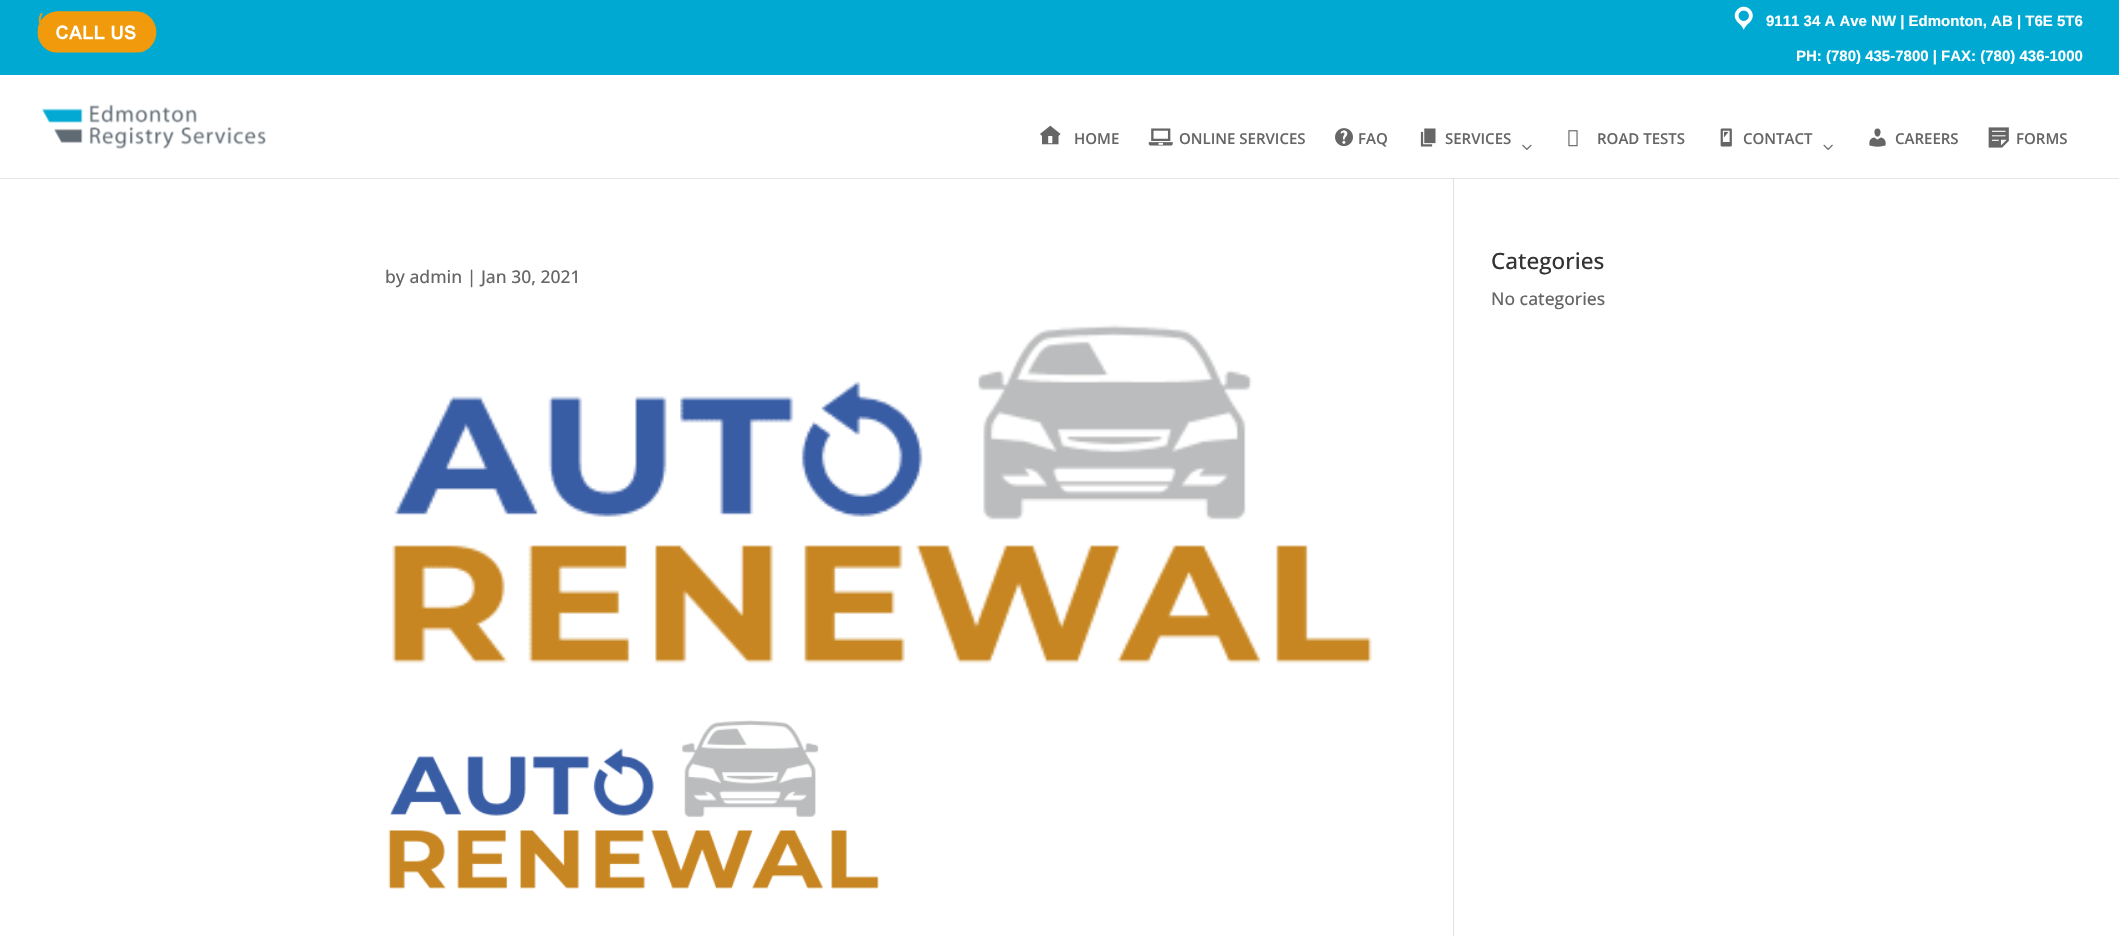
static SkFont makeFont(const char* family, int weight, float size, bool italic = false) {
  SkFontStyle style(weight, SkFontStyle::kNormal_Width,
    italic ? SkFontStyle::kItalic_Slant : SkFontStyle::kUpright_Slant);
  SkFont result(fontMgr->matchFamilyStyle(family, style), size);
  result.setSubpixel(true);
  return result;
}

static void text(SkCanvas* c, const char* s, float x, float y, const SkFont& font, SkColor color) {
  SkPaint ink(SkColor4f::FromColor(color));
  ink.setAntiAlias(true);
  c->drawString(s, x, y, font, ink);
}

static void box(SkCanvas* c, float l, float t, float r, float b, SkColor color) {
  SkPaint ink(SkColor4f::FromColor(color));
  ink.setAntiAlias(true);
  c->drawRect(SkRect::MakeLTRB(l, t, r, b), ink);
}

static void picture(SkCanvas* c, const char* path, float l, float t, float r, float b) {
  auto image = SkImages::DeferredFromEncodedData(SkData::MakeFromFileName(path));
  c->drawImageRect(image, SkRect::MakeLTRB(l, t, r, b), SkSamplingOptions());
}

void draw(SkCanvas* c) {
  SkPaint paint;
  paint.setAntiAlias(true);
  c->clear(0xffffffff);
  box(c, 0, 178, 2119, 179, 0xffe6e6e6);
  box(c, 0, 0, 2119, 75, 0xff00a9d1);
  picture(c, "img_01.png", 37, 11, 157, 53);
  SkFont face1 = makeFont("Liberation Sans", 700, 15);
  text(c, "(", 38, 24, face1, 0xffe39c17);
  picture(c, "img_02.png", 1734, 6, 1753, 30);
  text(c, "9111 34 A Ave NW | Edmonton, AB | T6E 5T6", 1766, 26, face1, 0xffffffff);
  text(c, "PH: (780) 435-7800 | FAX: (780) 436-1000", 1796, 61, face1, 0xffffffff);
  box(c, 1453, 176, 1454, 936, 0xffe2e2e2);
  box(c, 1453, 176, 1454, 178, 0xffffffff);
  picture(c, "img_03.png", 42, 104, 266, 149);
  picture(c, "img_04.png", 1040, 125, 1061, 145);
  SkFont face2 = makeFont("Open Sans", 600, 15);
  text(c, "HOME", 1074, 144, face2, 0xff666666);
  picture(c, "img_05.png", 1148, 128, 1173, 146);
  text(c, "ONLINE SERVICES", 1179, 144, face2, 0xff666666);
  picture(c, "img_06.png", 1335, 128, 1353, 147);
  text(c, "FAQ", 1358, 144, face2, 0xff666666);
  picture(c, "img_07.png", 1420, 128, 1436, 147);
  text(c, "SERVICES", 1445, 144, face2, 0xff666666);
  picture(c, "img_08.png", 1522, 144, 1532, 150);
  picture(c, "img_09.png", 1568, 130, 1578, 147);
  text(c, "ROAD TESTS", 1597, 144, face2, 0xff666666);
  picture(c, "img_10.png", 1720, 128, 1732, 147);
  text(c, "CONTACT", 1743, 144, face2, 0xff666666);
  picture(c, "img_11.png", 1823, 144, 1833, 150);
  picture(c, "img_12.png", 1869, 128, 1886, 147);
  text(c, "CAREERS", 1895, 144, face2, 0xff666666);
  picture(c, "img_13.png", 1988, 127, 2009, 148);
  text(c, "FORMS", 2016, 144, face2, 0xff666666);
  box(c, 1453, 178, 1454, 179, 0xffcbcbcb);
  SkFont face3 = makeFont("Open Sans", 500, 17.5f);
  text(c, "by admin | Jan 30, 2021", 385, 283, face3, 0xff666666);
  picture(c, "img_14.png", 392, 324, 1372, 664);
  picture(c, "img_15.png", 388, 720, 879, 889);
  SkFont face4 = makeFont("Open Sans", 500, 22.5f);
  text(c, "Categories", 1491, 269, face4, 0xff333333);
  text(c, "No categories", 1491, 305, face3, 0xff666666);
}
